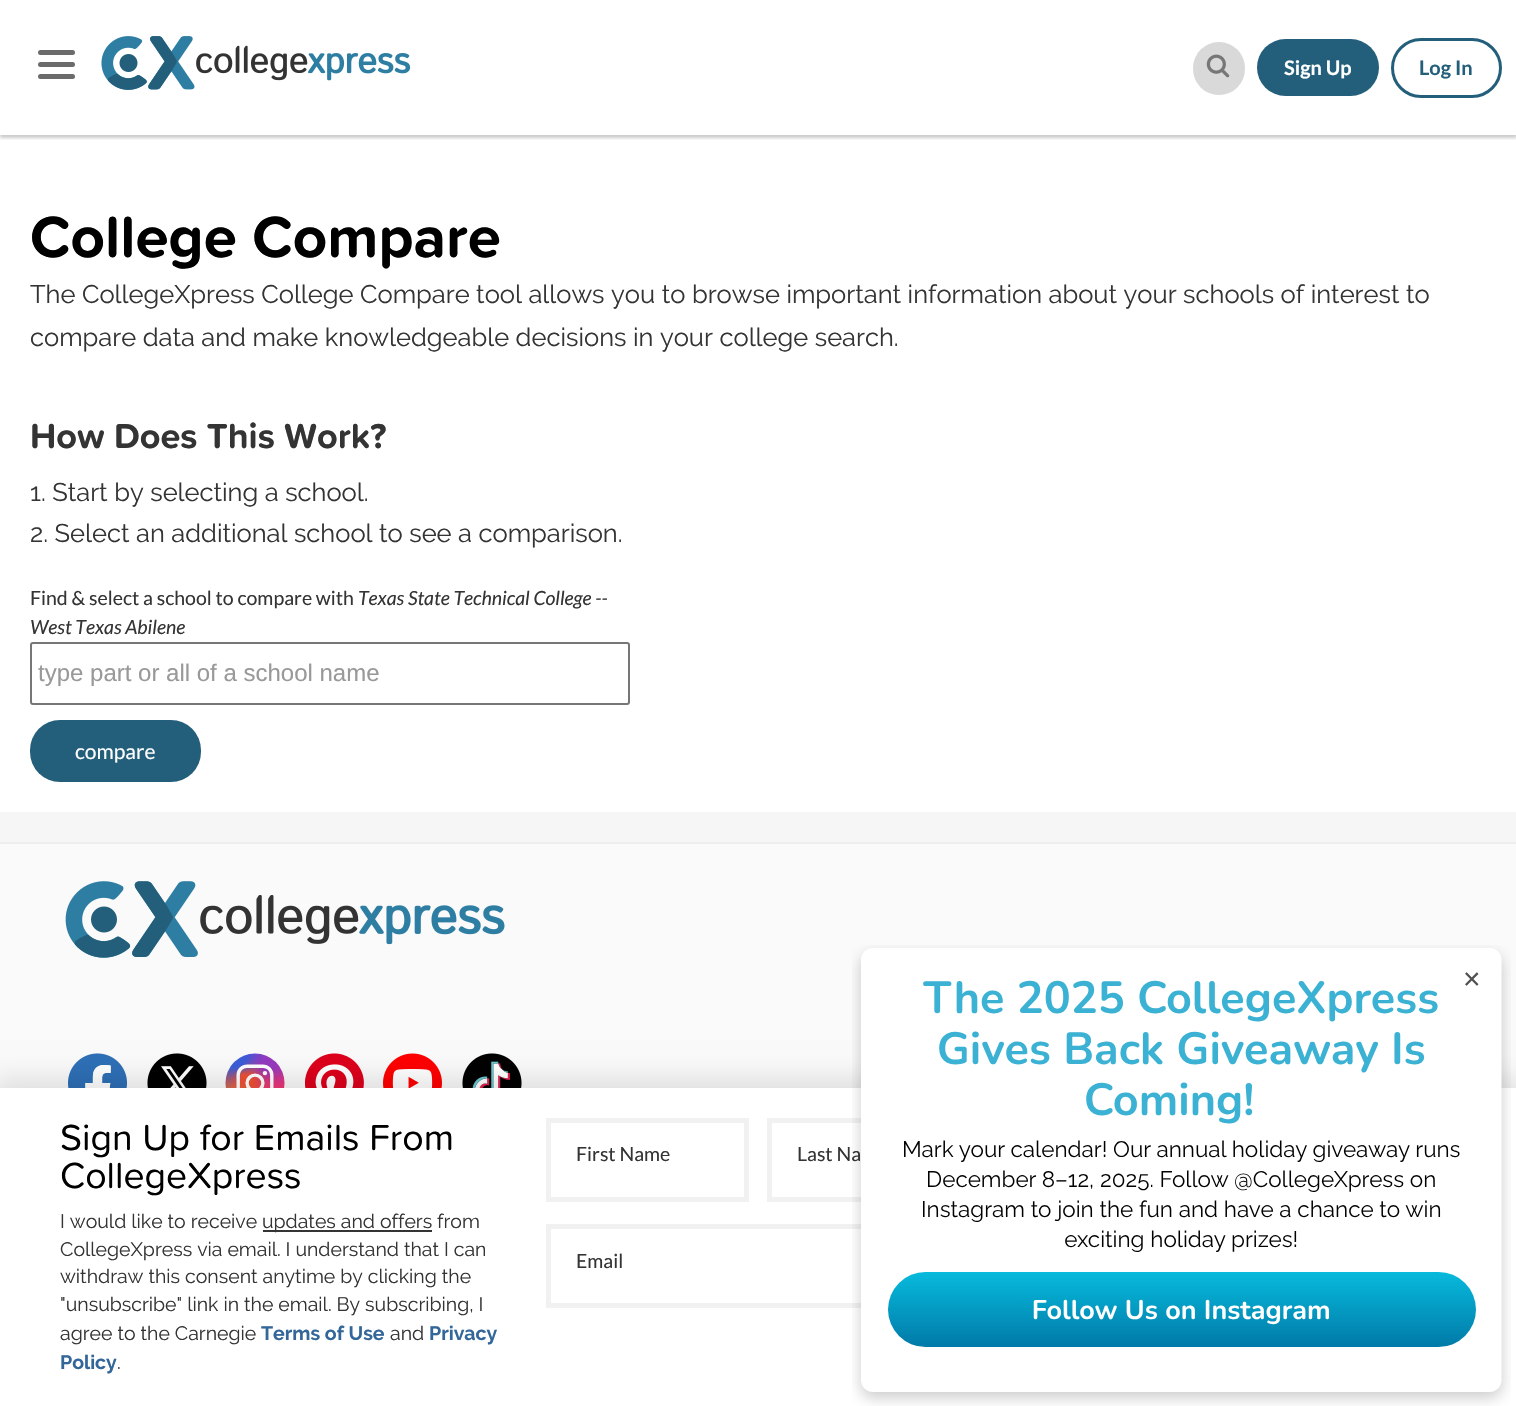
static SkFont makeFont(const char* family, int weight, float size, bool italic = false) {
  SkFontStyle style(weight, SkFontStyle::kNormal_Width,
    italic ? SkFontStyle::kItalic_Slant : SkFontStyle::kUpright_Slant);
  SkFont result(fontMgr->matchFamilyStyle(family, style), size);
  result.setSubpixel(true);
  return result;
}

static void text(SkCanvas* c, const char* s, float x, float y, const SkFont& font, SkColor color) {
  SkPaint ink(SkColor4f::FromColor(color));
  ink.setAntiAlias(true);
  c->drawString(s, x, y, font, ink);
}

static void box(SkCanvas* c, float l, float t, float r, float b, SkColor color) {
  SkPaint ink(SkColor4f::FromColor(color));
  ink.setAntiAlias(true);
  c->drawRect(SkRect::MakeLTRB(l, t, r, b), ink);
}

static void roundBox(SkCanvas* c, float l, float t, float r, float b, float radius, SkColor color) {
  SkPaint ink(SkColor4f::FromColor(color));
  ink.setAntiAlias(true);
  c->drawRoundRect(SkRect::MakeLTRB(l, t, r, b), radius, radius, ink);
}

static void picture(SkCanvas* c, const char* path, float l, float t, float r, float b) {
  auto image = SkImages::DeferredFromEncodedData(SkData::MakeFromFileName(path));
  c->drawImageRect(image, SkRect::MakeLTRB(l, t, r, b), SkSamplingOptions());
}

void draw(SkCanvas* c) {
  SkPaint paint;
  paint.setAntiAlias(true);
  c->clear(0xfff6f6f6);
  box(c, 0, 0, 1516, 812, 0xffffffff);
  c->save();
  c->clipRect(SkRect::MakeLTRB(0, 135, 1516, 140));
  paint.setColor(0x33000000);
  paint.setMaskFilter(SkMaskFilter::MakeBlur(kNormal_SkBlurStyle, 1.5f));
  c->drawRect(SkRect::MakeLTRB(0, 3, 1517, 138), paint);
  paint.setMaskFilter(nullptr);
  c->restore();
  roundBox(c, 38, 50, 75, 55, 2.5f, 0xff6b6b6b);
  roundBox(c, 38, 62, 75, 67, 2.5f, 0xff6b6b6b);
  roundBox(c, 38, 74, 75, 79, 2.5f, 0xff6b6b6b);
  picture(c, "img_01.png", 101, 36, 411, 90);
  roundBox(c, 1193, 42, 1245, 95, 26, 0xffd9d9d9);
  picture(c, "img_02.png", 1206, 54, 1230, 78);
  roundBox(c, 1257, 39, 1379, 96, 28.5f, 0xff235f7b);
  SkFont face1 = makeFont("Lato", 700, 20);
  text(c, "Sign Up", 1284, 75, face1, 0xffffffff);
  paint.setStyle(SkPaint::kStroke_Style);
  paint.setStrokeWidth(3);
  paint.setColor(0xff235f7b);
  c->drawRoundRect(SkRect::MakeLTRB(1392.5f, 39.5f, 1500.5f, 96.5f), 28.5f, 28.5f, paint);
  text(c, "Log In", 1419, 75, face1, 0xff235f7b);
  SkFont face2 = makeFont("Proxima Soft", 700, 60);
  text(c, "College Compare", 30, 257, face2, 0xff000000);
  SkFont face3 = makeFont("Raleway", 400, 25.5f);
  text(c, "The CollegeXpress College Compare tool allows you to browse important information about your schools of interest to", 30, 303, face3, 0xff343434);
  text(c, "compare data and make knowledgeable decisions in your college search.", 30, 346, face3, 0xff343434);
  SkFont face4 = makeFont("Proxima Soft", 700, 36);
  text(c, "How Does This Work?", 30, 448, face4, 0xff343434);
  text(c, "1. Start by selecting a school.", 30, 501, face3, 0xff343434);
  text(c, "2. Select an additional school to see a comparison.", 30, 542, face3, 0xff343434);
  SkFont face5 = makeFont("Lato", 400, 19.5f);
  text(c, "Find & select a school to compare with", 30, 605, face5, 0xff343434);
  SkFont face6 = makeFont("Lato", 400, 19.5f, true);
  text(c, "Texas State Technical College --", 358, 605, face6, 0xff343434);
  text(c, "West Texas Abilene", 30, 634, face6, 0xff343434);
  paint.setStrokeWidth(2);
  paint.setColor(0xff767676);
  c->drawRoundRect(SkRect::MakeLTRB(31, 643, 629, 704), 2, 2, paint);
  SkFont face7 = makeFont("Liberation Sans", 400, 24);
  text(c, "type part or all of a school name", 38, 681, face7, 0xff999999);
  roundBox(c, 30, 720, 201, 782, 30, 0xff235f7b);
  SkFont face8 = makeFont("Lato", 400, 21);
  text(c, "compare", 75, 759, face8, 0xffffffff);
  box(c, 0, 844, 1516, 1088, 0xfffafafa);
  box(c, 0, 842, 1516, 844, 0xffeeeeee);
  picture(c, "img_03.png", 65, 881, 505, 958);
  picture(c, "img_04.png", 68, 1053, 127, 1088);
  picture(c, "img_05.png", 147, 1053, 207, 1088);
  picture(c, "img_06.png", 225, 1053, 285, 1088);
  picture(c, "img_07.png", 305, 1053, 364, 1088);
  picture(c, "img_08.png", 383, 1053, 442, 1088);
  picture(c, "img_09.png", 462, 1053, 522, 1088);
  paint.setStyle(SkPaint::kFill_Style);
  paint.setColor(0x1a000000);
  paint.setMaskFilter(SkMaskFilter::MakeBlur(kNormal_SkBlurStyle, 12));
  c->drawRect(SkRect::MakeLTRB(-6, 1077, 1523, 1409), paint);
  paint.setMaskFilter(nullptr);
  box(c, 0, 1088, 1516, 1406, 0xffffffff);
  paint.setStyle(SkPaint::kStroke_Style);
  paint.setStrokeWidth(5);
  paint.setColor(0xfff1f1f1);
  c->drawRect(SkRect::MakeLTRB(769.5f, 1120.5f, 966.5f, 1199.5f), paint);
  text(c, "Last Na", 797, 1161, face5, 0xff343434);
  c->drawRect(SkRect::MakeLTRB(548.5f, 1226.5f, 968.5f, 1305.5f), paint);
  picture(c, "img_10.png", 852, 945, 1511, 1406);
  SkFont face9 = makeFont("Liberation Sans", 400, 30);
  text(c, "×", 1463, 989, face9, 0xff525151);
  SkFont face10 = makeFont("Proxima Soft", 400, 37.5f);
  text(c, "Sign Up for Emails From", 60, 1150, face10, 0xff000000);
  text(c, "CollegeXpress", 60, 1188, face10, 0xff000000);
  SkFont face11 = makeFont("Raleway", 400, 19.5f);
  text(c, "I would like to receive", 60, 1228, face11, 0xff343434);
  box(c, 263, 1230, 432, 1232, 0xff343434);
  text(c, "updates and offers", 262, 1228, face11, 0xff343434);
  text(c, "from", 437, 1228, face11, 0xff343434);
  text(c, "CollegeXpress via email. I understand that I can", 60, 1256, face11, 0xff343434);
  text(c, "withdraw this consent anytime by clicking the", 60, 1283, face11, 0xff343434);
  text(c, "\"unsubscribe\" link in the email. By subscribing, I", 60, 1311, face11, 0xff343434);
  text(c, "agree to the Carnegie", 60, 1340, face11, 0xff343434);
  SkFont face12 = makeFont("Raleway", 700, 19.5f);
  text(c, "Terms of Use", 261, 1340, face12, 0xff336699);
  text(c, "and", 390, 1340, face11, 0xff343434);
  text(c, "Privacy", 429, 1340, face12, 0xff336699);
  text(c, "Policy", 60, 1369, face12, 0xff336699);
  text(c, ".", 117, 1369, face11, 0xff343434);
  c->drawRect(SkRect::MakeLTRB(548.5f, 1120.5f, 746.5f, 1199.5f), paint);
  text(c, "First Name", 576, 1161, face5, 0xff343434);
  text(c, "Email", 576, 1268, face5, 0xff343434);
}
